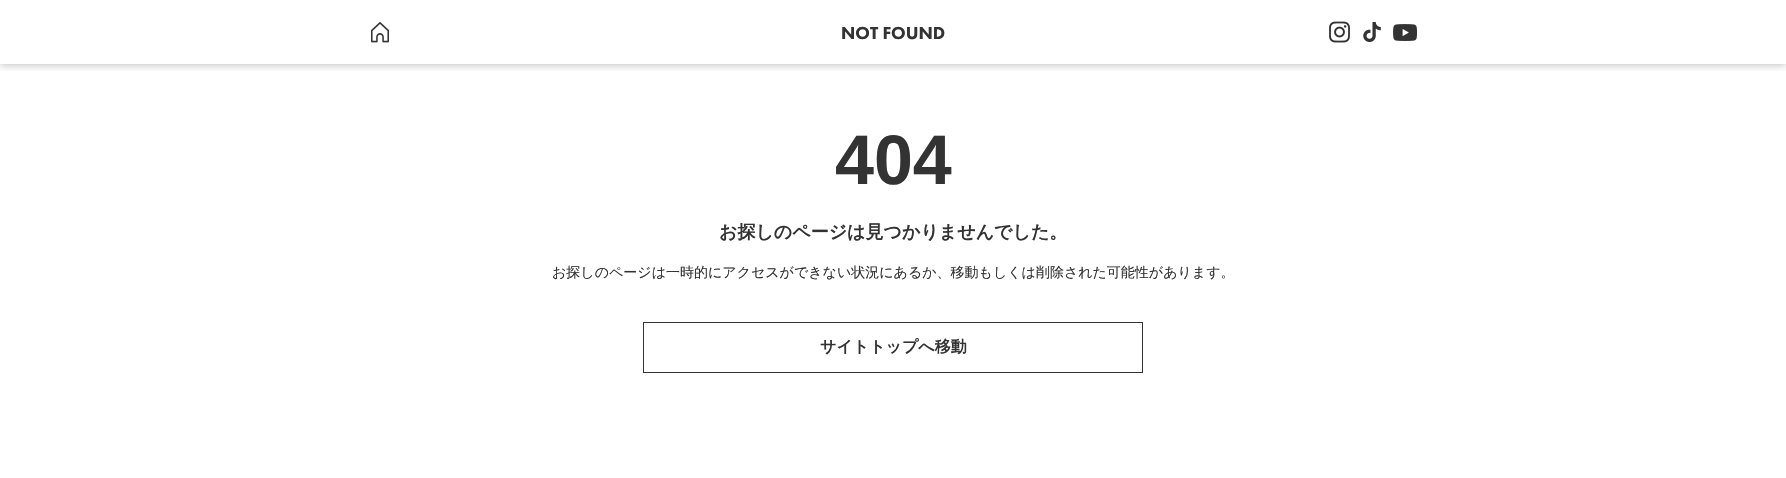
static SkFont makeFont(const char* family, int weight, float size, bool italic = false) {
  SkFontStyle style(weight, SkFontStyle::kNormal_Width,
    italic ? SkFontStyle::kItalic_Slant : SkFontStyle::kUpright_Slant);
  SkFont result(fontMgr->matchFamilyStyle(family, style), size);
  result.setSubpixel(true);
  return result;
}

static void text(SkCanvas* c, const char* s, float x, float y, const SkFont& font, SkColor color) {
  SkPaint ink(SkColor4f::FromColor(color));
  ink.setAntiAlias(true);
  c->drawString(s, x, y, font, ink);
}

static void picture(SkCanvas* c, const char* path, float l, float t, float r, float b) {
  auto image = SkImages::DeferredFromEncodedData(SkData::MakeFromFileName(path));
  c->drawImageRect(image, SkRect::MakeLTRB(l, t, r, b), SkSamplingOptions());
}

void draw(SkCanvas* c) {
  SkPaint paint;
  paint.setAntiAlias(true);
  c->clear(0xffffffff);
  c->save();
  c->clipRect(SkRect::MakeLTRB(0, 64, 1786, 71));
  paint.setColor(0x40000000);
  paint.setMaskFilter(SkMaskFilter::MakeBlur(kNormal_SkBlurStyle, 4));
  c->drawRect(SkRect::MakeLTRB(0, 1, 1786, 65), paint);
  paint.setMaskFilter(nullptr);
  c->restore();
  picture(c, "img_01.png", 371, 22, 389, 43);
  SkFont face1 = makeFont("Futura PT", 900, 18);
  text(c, "NOT FOUND", 841, 39, face1, 0xff333333);
  picture(c, "img_02.png", 1329, 21, 1350, 43);
  picture(c, "img_03.png", 1363, 22, 1381, 42);
  picture(c, "img_04.png", 1393, 24, 1417, 41);
  SkFont face2 = makeFont("Liberation Sans", 700, 70);
  text(c, "404", 835, 184, face2, 0xff333333);
  SkFont face3 = makeFont("WenQuanYi Zen Hei", 700, 18);
  text(c, "お探しのページは見つかりませんでした。", 719, 238, face3, 0xff333333);
  SkFont face4 = makeFont("WenQuanYi Zen Hei", 500, 14);
  text(c, "お探しのページは一時的にアクセスができない状況にあるか、移動もしくは削除された可能性があります。", 552, 277, face4, 0xff333333);
  paint.setStyle(SkPaint::kStroke_Style);
  paint.setStrokeWidth(1);
  paint.setColor(0xff333333);
  c->drawRect(SkRect::MakeLTRB(643.5f, 322.5f, 1142.5f, 372.5f), paint);
  SkFont face5 = makeFont("WenQuanYi Zen Hei", 700, 16);
  text(c, "サイトトップへ移動", 820, 352, face5, 0xff333333);
}
